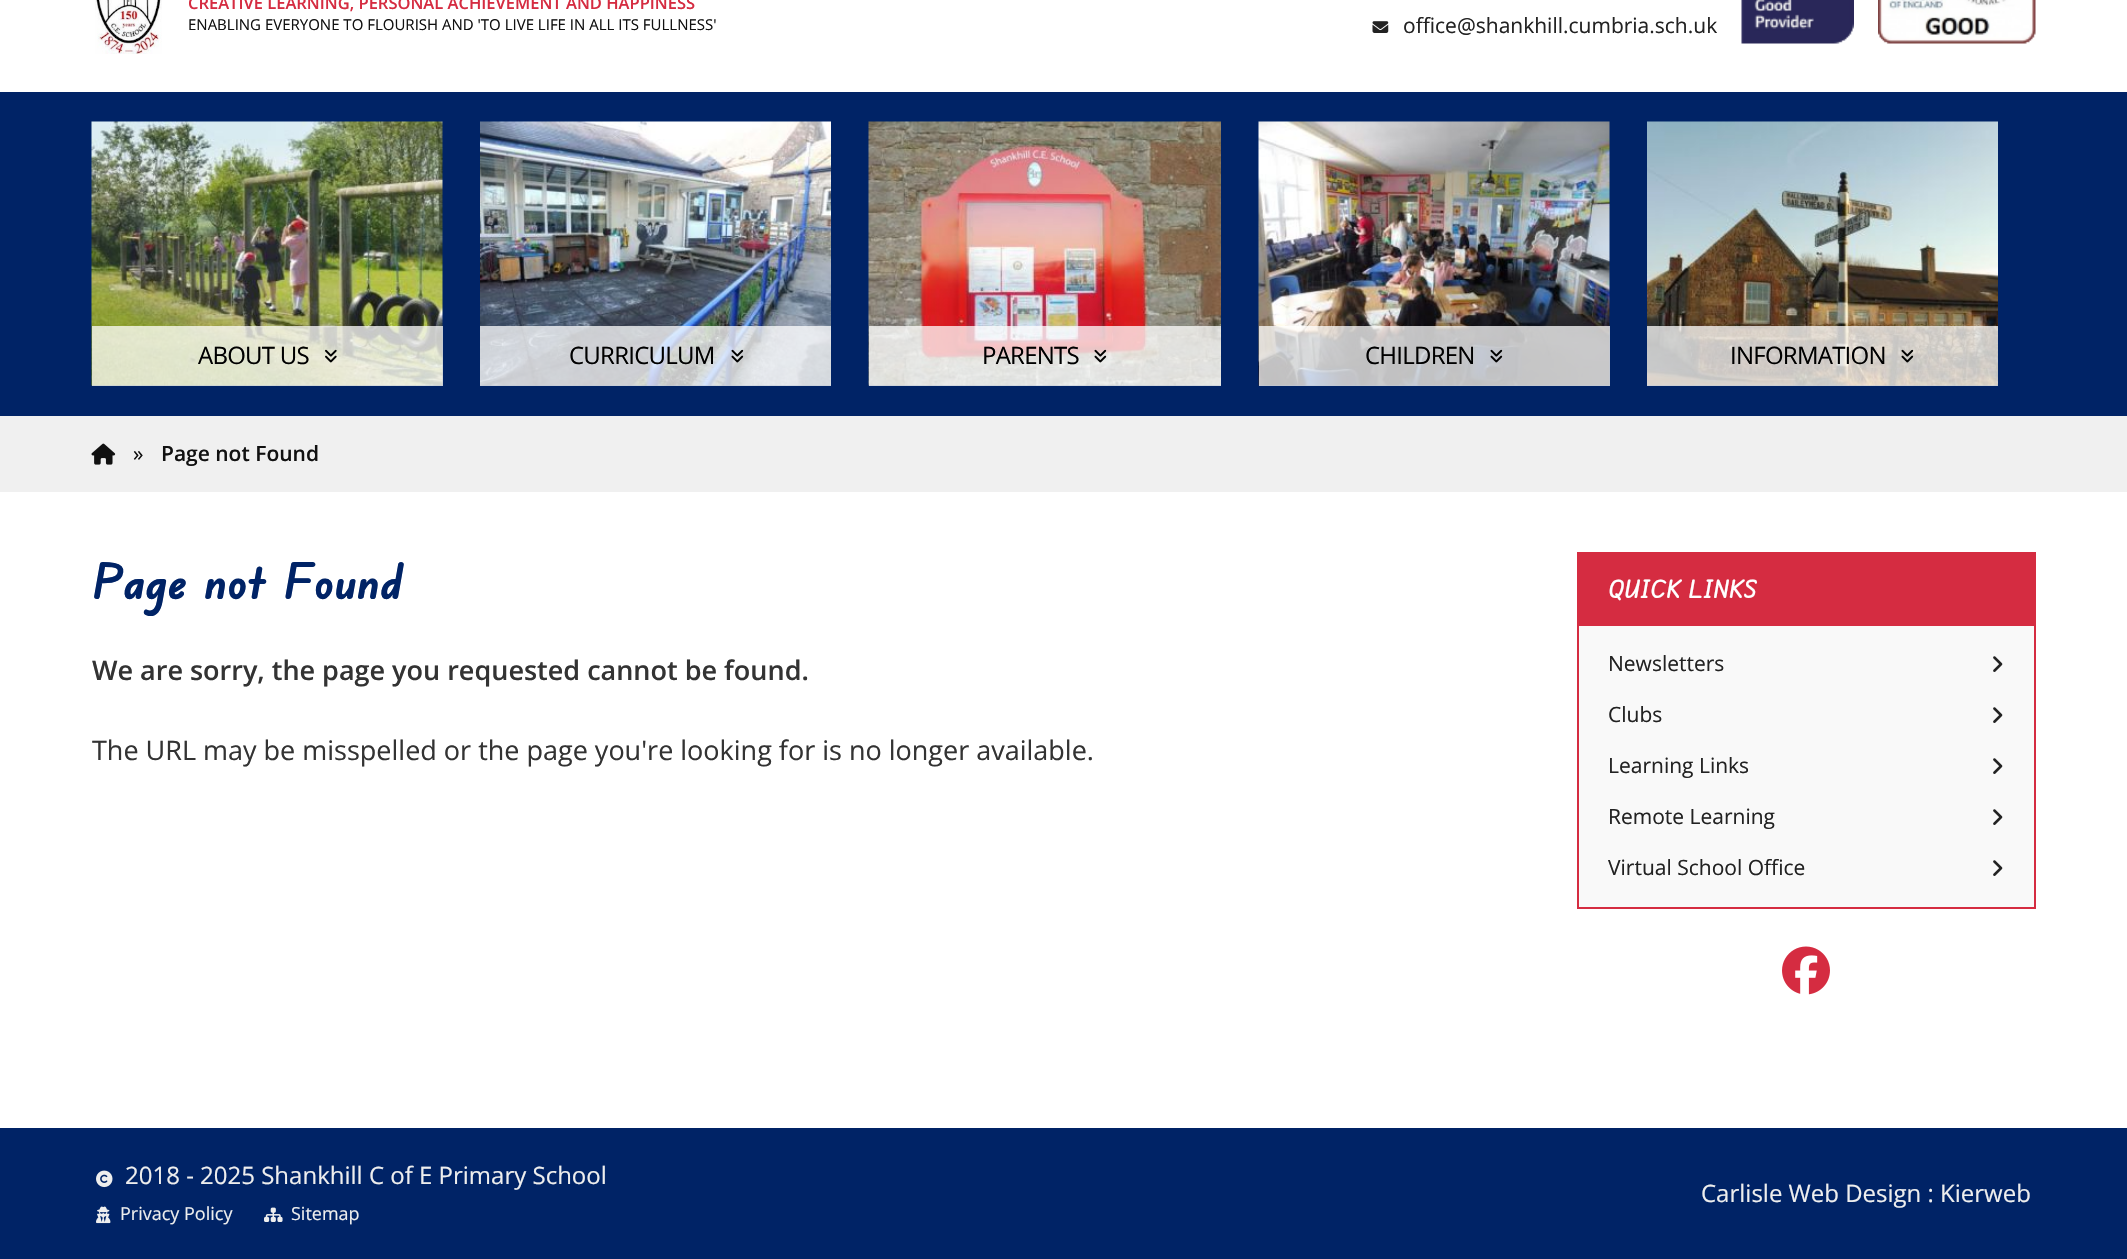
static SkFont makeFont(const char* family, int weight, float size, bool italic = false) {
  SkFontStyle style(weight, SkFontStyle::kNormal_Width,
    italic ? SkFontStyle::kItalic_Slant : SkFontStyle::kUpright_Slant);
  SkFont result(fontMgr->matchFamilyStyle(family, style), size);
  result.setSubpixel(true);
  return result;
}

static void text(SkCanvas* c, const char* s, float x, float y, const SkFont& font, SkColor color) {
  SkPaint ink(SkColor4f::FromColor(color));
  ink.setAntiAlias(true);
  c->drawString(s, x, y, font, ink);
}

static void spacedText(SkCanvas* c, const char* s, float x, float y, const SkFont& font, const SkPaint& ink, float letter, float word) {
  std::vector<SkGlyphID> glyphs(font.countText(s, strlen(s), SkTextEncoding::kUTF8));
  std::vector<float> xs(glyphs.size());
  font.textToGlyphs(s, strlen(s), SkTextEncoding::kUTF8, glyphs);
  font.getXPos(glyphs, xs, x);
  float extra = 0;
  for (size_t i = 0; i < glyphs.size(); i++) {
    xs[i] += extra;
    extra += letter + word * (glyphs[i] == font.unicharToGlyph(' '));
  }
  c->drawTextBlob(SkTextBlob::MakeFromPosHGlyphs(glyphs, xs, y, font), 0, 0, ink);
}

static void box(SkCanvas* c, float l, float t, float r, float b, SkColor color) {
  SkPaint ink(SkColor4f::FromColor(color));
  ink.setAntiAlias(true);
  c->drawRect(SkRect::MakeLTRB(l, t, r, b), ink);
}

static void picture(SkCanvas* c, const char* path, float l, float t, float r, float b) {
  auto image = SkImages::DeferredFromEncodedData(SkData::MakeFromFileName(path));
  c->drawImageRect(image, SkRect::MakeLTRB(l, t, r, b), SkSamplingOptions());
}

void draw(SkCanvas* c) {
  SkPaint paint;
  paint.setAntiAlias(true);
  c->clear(0xffffffff);
  picture(c, "img_01.png", 95, 0, 162, 54);
  SkFont face1 = makeFont("Open Sans", 600, 16.5f);
  text(c, "CREATIVE LEARNING, PERSONAL ACHIEVEMENT AND HAPPINESS", 188, 9, face1, 0xffd52c41);
  SkFont face2 = makeFont("Open Sans", 400, 15);
  text(c, "ENABLING EVERYONE TO FLOURISH AND 'TO LIVE LIFE IN ALL ITS FULLNESS'", 188, 30, face2, 0xff111111);
  picture(c, "img_02.png", 1372, 21, 1389, 33);
  SkFont face3 = makeFont("Open Sans", 400, 21);
  text(c, "office@shankhill.cumbria.sch.uk", 1403, 33, face3, 0xff222222);
  picture(c, "img_03.png", 1741, 0, 1854, 44);
  picture(c, "img_04.png", 1878, 0, 2036, 44);
  box(c, 0, 92, 2127, 416, 0xff002366);
  picture(c, "img_05.png", 91, 121, 443, 386);
  box(c, 92, 326, 443, 386, 0xbfffffff);
  SkFont face4 = makeFont("Open Sans", 400, 24);
  paint.setColor(0xff000000);
  spacedText(c, "ABOUT US", 198, 364, face4, paint, -0.75f, 0);
  picture(c, "img_06.png", 325, 349, 337, 363);
  picture(c, "img_07.png", 480, 121, 831, 386);
  box(c, 480, 326, 831, 386, 0xbfffffff);
  spacedText(c, "CURRICULUM", 569, 364, face4, paint, -0.75f, 0);
  picture(c, "img_08.png", 731, 349, 744, 363);
  picture(c, "img_09.png", 868, 121, 1221, 386);
  box(c, 869, 326, 1221, 386, 0xbfffffff);
  spacedText(c, "PARENTS", 982, 364, face4, paint, -0.75f, 0);
  picture(c, "img_10.png", 1094, 349, 1107, 363);
  picture(c, "img_11.png", 1258, 121, 1610, 386);
  box(c, 1259, 326, 1610, 386, 0xbfffffff);
  spacedText(c, "CHILDREN", 1365, 364, face4, paint, -0.75f, 0);
  picture(c, "img_12.png", 1490, 349, 1503, 363);
  picture(c, "img_13.png", 1647, 121, 1998, 386);
  box(c, 1647, 326, 1998, 386, 0xbfffffff);
  spacedText(c, "INFORMATION", 1730, 364, face4, paint, -0.75f, 0);
  picture(c, "img_14.png", 1901, 349, 1914, 363);
  box(c, 0, 416, 2127, 492, 0xfff0f0f0);
  picture(c, "img_15.png", 91, 443, 116, 465);
  text(c, "»", 133, 461, face3, 0xff111111);
  SkFont face5 = makeFont("Open Sans", 600, 21);
  text(c, "Page not Found", 161, 461, face5, 0xff111111);
  SkFont face6 = makeFont("Edu VIC WA NT Beginner", 700, 48);
  text(c, "Page not Found", 92, 599, face6, 0xff002366);
  SkFont face7 = makeFont("Open Sans", 600, 27);
  text(c, "We are sorry, the page you requested cannot be found.", 92, 680, face7, 0xff333333);
  SkFont face8 = makeFont("Open Sans", 400, 27);
  text(c, "The URL may be misspelled or the page you're looking for is no longer available.", 92, 760, face8, 0xff333333);
  box(c, 1579, 626, 2034, 907, 0xfff9f9f9);
  paint.setStyle(SkPaint::kStroke_Style);
  paint.setStrokeWidth(2);
  paint.setColor(0xffd52c41);
  c->drawRect(SkRect::MakeLTRB(1578, 553, 2035, 908), paint);
  box(c, 1579, 554, 2034, 626, 0xffd52c41);
  SkFont face9 = makeFont("Edu VIC WA NT Beginner", 600, 24);
  text(c, "QUICK LINKS", 1608, 598, face9, 0xffffffff);
  text(c, "Newsletters", 1608, 671, face3, 0xff222222);
  picture(c, "img_16.png", 1993, 656, 2003, 672);
  text(c, "Clubs", 1608, 722, face3, 0xff222222);
  picture(c, "img_16.png", 1993, 707, 2003, 723);
  text(c, "Learning Links", 1608, 773, face3, 0xff222222);
  picture(c, "img_16.png", 1993, 758, 2003, 774);
  text(c, "Remote Learning", 1608, 824, face3, 0xff222222);
  picture(c, "img_16.png", 1993, 809, 2003, 825);
  text(c, "Virtual School Office", 1608, 875, face3, 0xff222222);
  picture(c, "img_16.png", 1993, 860, 2003, 876);
  picture(c, "img_17.png", 1782, 946, 1830, 995);
  box(c, 0, 1128, 2127, 1259, 0xff002366);
  picture(c, "img_18.png", 96, 1170, 113, 1188);
  text(c, "2018 - 2025 Shankhill C of E Primary School", 125, 1184, face4, 0xffeeeeee);
  picture(c, "img_19.png", 96, 1206, 111, 1224);
  SkFont face10 = makeFont("Open Sans", 400, 18);
  text(c, "Privacy Policy", 120, 1220, face10, 0xffeeeeee);
  picture(c, "img_20.png", 264, 1207, 283, 1222);
  text(c, "Sitemap", 291, 1220, face10, 0xffeeeeee);
  text(c, "Carlisle Web Design : Kierweb", 1701, 1202, face4, 0xffeeeeee);
}
